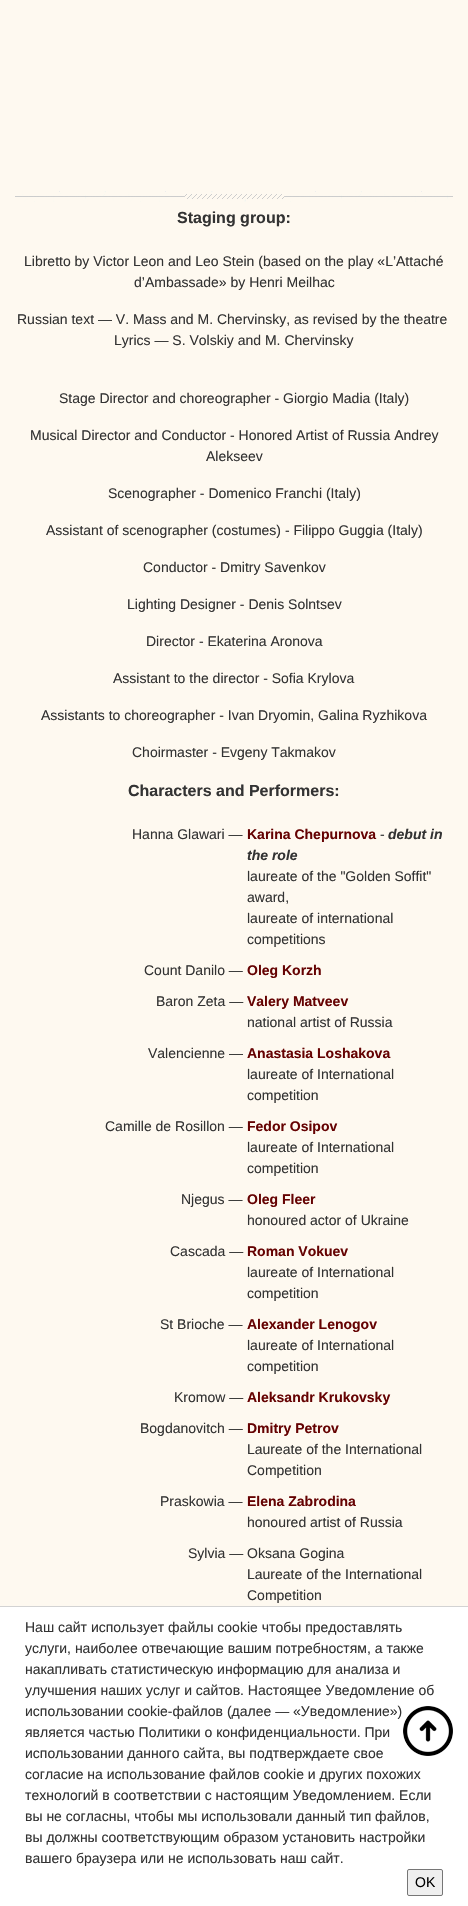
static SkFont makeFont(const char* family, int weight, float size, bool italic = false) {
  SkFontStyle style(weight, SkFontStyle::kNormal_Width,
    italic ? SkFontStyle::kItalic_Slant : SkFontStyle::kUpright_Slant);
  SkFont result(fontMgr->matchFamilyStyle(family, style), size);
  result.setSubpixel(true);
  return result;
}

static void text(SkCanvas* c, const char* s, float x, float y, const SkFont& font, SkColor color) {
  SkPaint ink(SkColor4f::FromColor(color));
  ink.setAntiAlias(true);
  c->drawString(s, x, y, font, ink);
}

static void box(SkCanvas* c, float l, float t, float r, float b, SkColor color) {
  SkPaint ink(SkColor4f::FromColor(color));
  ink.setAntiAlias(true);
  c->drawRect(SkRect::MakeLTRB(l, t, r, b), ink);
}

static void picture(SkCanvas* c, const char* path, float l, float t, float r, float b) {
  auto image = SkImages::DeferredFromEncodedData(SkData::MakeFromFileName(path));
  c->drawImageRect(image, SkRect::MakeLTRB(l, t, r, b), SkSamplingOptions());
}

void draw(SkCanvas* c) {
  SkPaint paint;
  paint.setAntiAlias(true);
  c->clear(0xfffef9f0);
  picture(c, "img_01.png", 15, 191, 453, 202);
  SkFont face1 = makeFont("Liberation Sans", 700, 16);
  text(c, "Staging group:", 177, 223, face1, 0xff333333);
  SkFont face2 = makeFont("Liberation Sans", 400, 14);
  text(c, "Libretto by Victor Leon and Leo Stein (based on the play «L’Attaché", 24, 266, face2, 0xff333333);
  text(c, "d’Ambassade» by Henri Meilhac", 134, 287, face2, 0xff333333);
  text(c, "Russian text — V. Mass and M. Chervinsky, as revised by the theatre", 17, 324, face2, 0xff333333);
  text(c, "Lyrics — S. Volskiy and M. Chervinsky", 114, 345, face2, 0xff333333);
  text(c, "Stage Director and choreographer - Giorgio Madia (Italy)", 59, 403, face2, 0xff333333);
  text(c, "Musical Director and Conductor - Honored Artist of Russia Andrey", 30, 440, face2, 0xff333333);
  text(c, "Alekseev", 206, 461, face2, 0xff333333);
  text(c, "Scenographer - Domenico Franchi (Italy)", 108, 498, face2, 0xff333333);
  text(c, "Assistant of scenographer (costumes) - Filippo Guggia (Italy)", 46, 535, face2, 0xff333333);
  text(c, "Conductor - Dmitry Savenkov", 143, 572, face2, 0xff333333);
  text(c, "Lighting Designer - Denis Solntsev", 127, 609, face2, 0xff333333);
  text(c, "Director - Ekaterina Aronova", 146, 646, face2, 0xff333333);
  text(c, "Assistant to the director - Sofia Krylova", 113, 683, face2, 0xff333333);
  text(c, "Assistants to choreographer - Ivan Dryomin, Galina Ryzhikova", 41, 720, face2, 0xff333333);
  text(c, "Choirmaster - Evgeny Takmakov", 132, 757, face2, 0xff333333);
  text(c, "Characters and Performers:", 128, 796, face1, 0xff333333);
  text(c, "Hanna Glawari —", 132, 839, face2, 0xff333333);
  SkFont face3 = makeFont("Liberation Sans", 700, 14);
  text(c, "Karina Chepurnova", 247, 839, face3, 0xff650202);
  text(c, "-", 380, 839, face2, 0xff333333);
  SkFont face4 = makeFont("Liberation Sans", 700, 14, true);
  text(c, "debut in", 388, 839, face4, 0xff333333);
  text(c, "the role", 247, 860, face4, 0xff333333);
  text(c, "laureate of the \"Golden Soffit\"", 247, 881, face2, 0xff333333);
  text(c, "award,", 247, 902, face2, 0xff333333);
  text(c, "laureate of international", 247, 923, face2, 0xff333333);
  text(c, "competitions", 247, 944, face2, 0xff333333);
  text(c, "Count Danilo —", 144, 975, face2, 0xff333333);
  text(c, "Oleg Korzh", 247, 975, face3, 0xff650202);
  text(c, "Baron Zeta —", 156, 1006, face2, 0xff333333);
  text(c, "Valery Matveev", 247, 1006, face3, 0xff650202);
  text(c, "national artist of Russia", 247, 1027, face2, 0xff333333);
  text(c, "Valencienne —", 148, 1058, face2, 0xff333333);
  text(c, "Anastasia Loshakova", 247, 1058, face3, 0xff650202);
  text(c, "laureate of International", 247, 1079, face2, 0xff333333);
  text(c, "competition", 247, 1100, face2, 0xff333333);
  text(c, "Camille de Rosillon —", 105, 1131, face2, 0xff333333);
  text(c, "Fedor Osipov", 247, 1131, face3, 0xff650202);
  text(c, "laureate of International", 247, 1152, face2, 0xff333333);
  text(c, "competition", 247, 1173, face2, 0xff333333);
  text(c, "Njegus —", 181, 1204, face2, 0xff333333);
  text(c, "Oleg Fleer", 247, 1204, face3, 0xff650202);
  text(c, "honoured actor of Ukraine", 247, 1225, face2, 0xff333333);
  text(c, "Cascada —", 170, 1256, face2, 0xff333333);
  text(c, "Roman Vokuev", 247, 1256, face3, 0xff650202);
  text(c, "laureate of International", 247, 1277, face2, 0xff333333);
  text(c, "competition", 247, 1298, face2, 0xff333333);
  text(c, "St Brioche —", 160, 1329, face2, 0xff333333);
  text(c, "Alexander Lenogov", 247, 1329, face3, 0xff650202);
  text(c, "laureate of International", 247, 1350, face2, 0xff333333);
  text(c, "competition", 247, 1371, face2, 0xff333333);
  text(c, "Kromow —", 174, 1402, face2, 0xff333333);
  text(c, "Aleksandr Krukovsky", 247, 1402, face3, 0xff650202);
  text(c, "Bogdanovitch —", 140, 1433, face2, 0xff333333);
  text(c, "Dmitry Petrov", 247, 1433, face3, 0xff650202);
  text(c, "Laureate of the International", 247, 1454, face2, 0xff333333);
  text(c, "Competition", 247, 1475, face2, 0xff333333);
  text(c, "Praskowia —", 160, 1506, face2, 0xff333333);
  text(c, "Elena Zabrodina", 247, 1506, face3, 0xff650202);
  text(c, "honoured artist of Russia", 247, 1527, face2, 0xff333333);
  text(c, "Sylvia — Oksana Gogina", 188, 1558, face2, 0xff333333);
  text(c, "Laureate of the International", 247, 1579, face2, 0xff333333);
  text(c, "Competition", 247, 1600, face2, 0xff333333);
  box(c, 0, 1607, 468, 1906, 0xffffffff);
  box(c, 0, 1606, 468, 1607, 0xffd3d3d3);
  text(c, "Наш сайт использует файлы cookie чтобы предоставлять", 25, 1632, face2, 0xff333333);
  text(c, "услуги, наиболее отвечающие вашим потребностям, а также", 25, 1653, face2, 0xff333333);
  text(c, "накапливать статистическую информацию для анализа и", 25, 1674, face2, 0xff333333);
  text(c, "улучшения наших услуг и сайтов. Настоящее Уведомление об", 25, 1695, face2, 0xff333333);
  text(c, "использовании cookie-файлов (далее — «Уведомление»)", 25, 1716, face2, 0xff333333);
  text(c, "является частью Политики о конфиденциальности. При", 25, 1737, face2, 0xff333333);
  text(c, "использовании данного сайта, вы подтверждаете свое", 25, 1758, face2, 0xff333333);
  text(c, "согласие на использование файлов cookie и других похожих", 25, 1779, face2, 0xff333333);
  text(c, "технологий в соответствии с настоящим Уведомлением. Если", 25, 1800, face2, 0xff333333);
  text(c, "вы не согласны, чтобы мы использовали данный тип файлов,", 25, 1821, face2, 0xff333333);
  text(c, "вы должны соответствующим образом установить настройки", 25, 1842, face2, 0xff333333);
  text(c, "вашего браузера или не использовать наш сайт.", 25, 1863, face2, 0xff333333);
  paint.setColor(0xffefefef);
  c->drawRoundRect(SkRect::MakeLTRB(407.5f, 1869.5f, 442.5f, 1895.5f), 1.5f, 1.5f, paint);
  paint.setStyle(SkPaint::kStroke_Style);
  paint.setStrokeWidth(1);
  paint.setColor(0xff767676);
  c->drawRoundRect(SkRect::MakeLTRB(407.5f, 1869.5f, 442.5f, 1895.5f), 1.5f, 1.5f, paint);
  text(c, "OK", 415, 1887, face2, 0xff000000);
  picture(c, "img_02.png", 403, 1706, 453, 1756);
}
